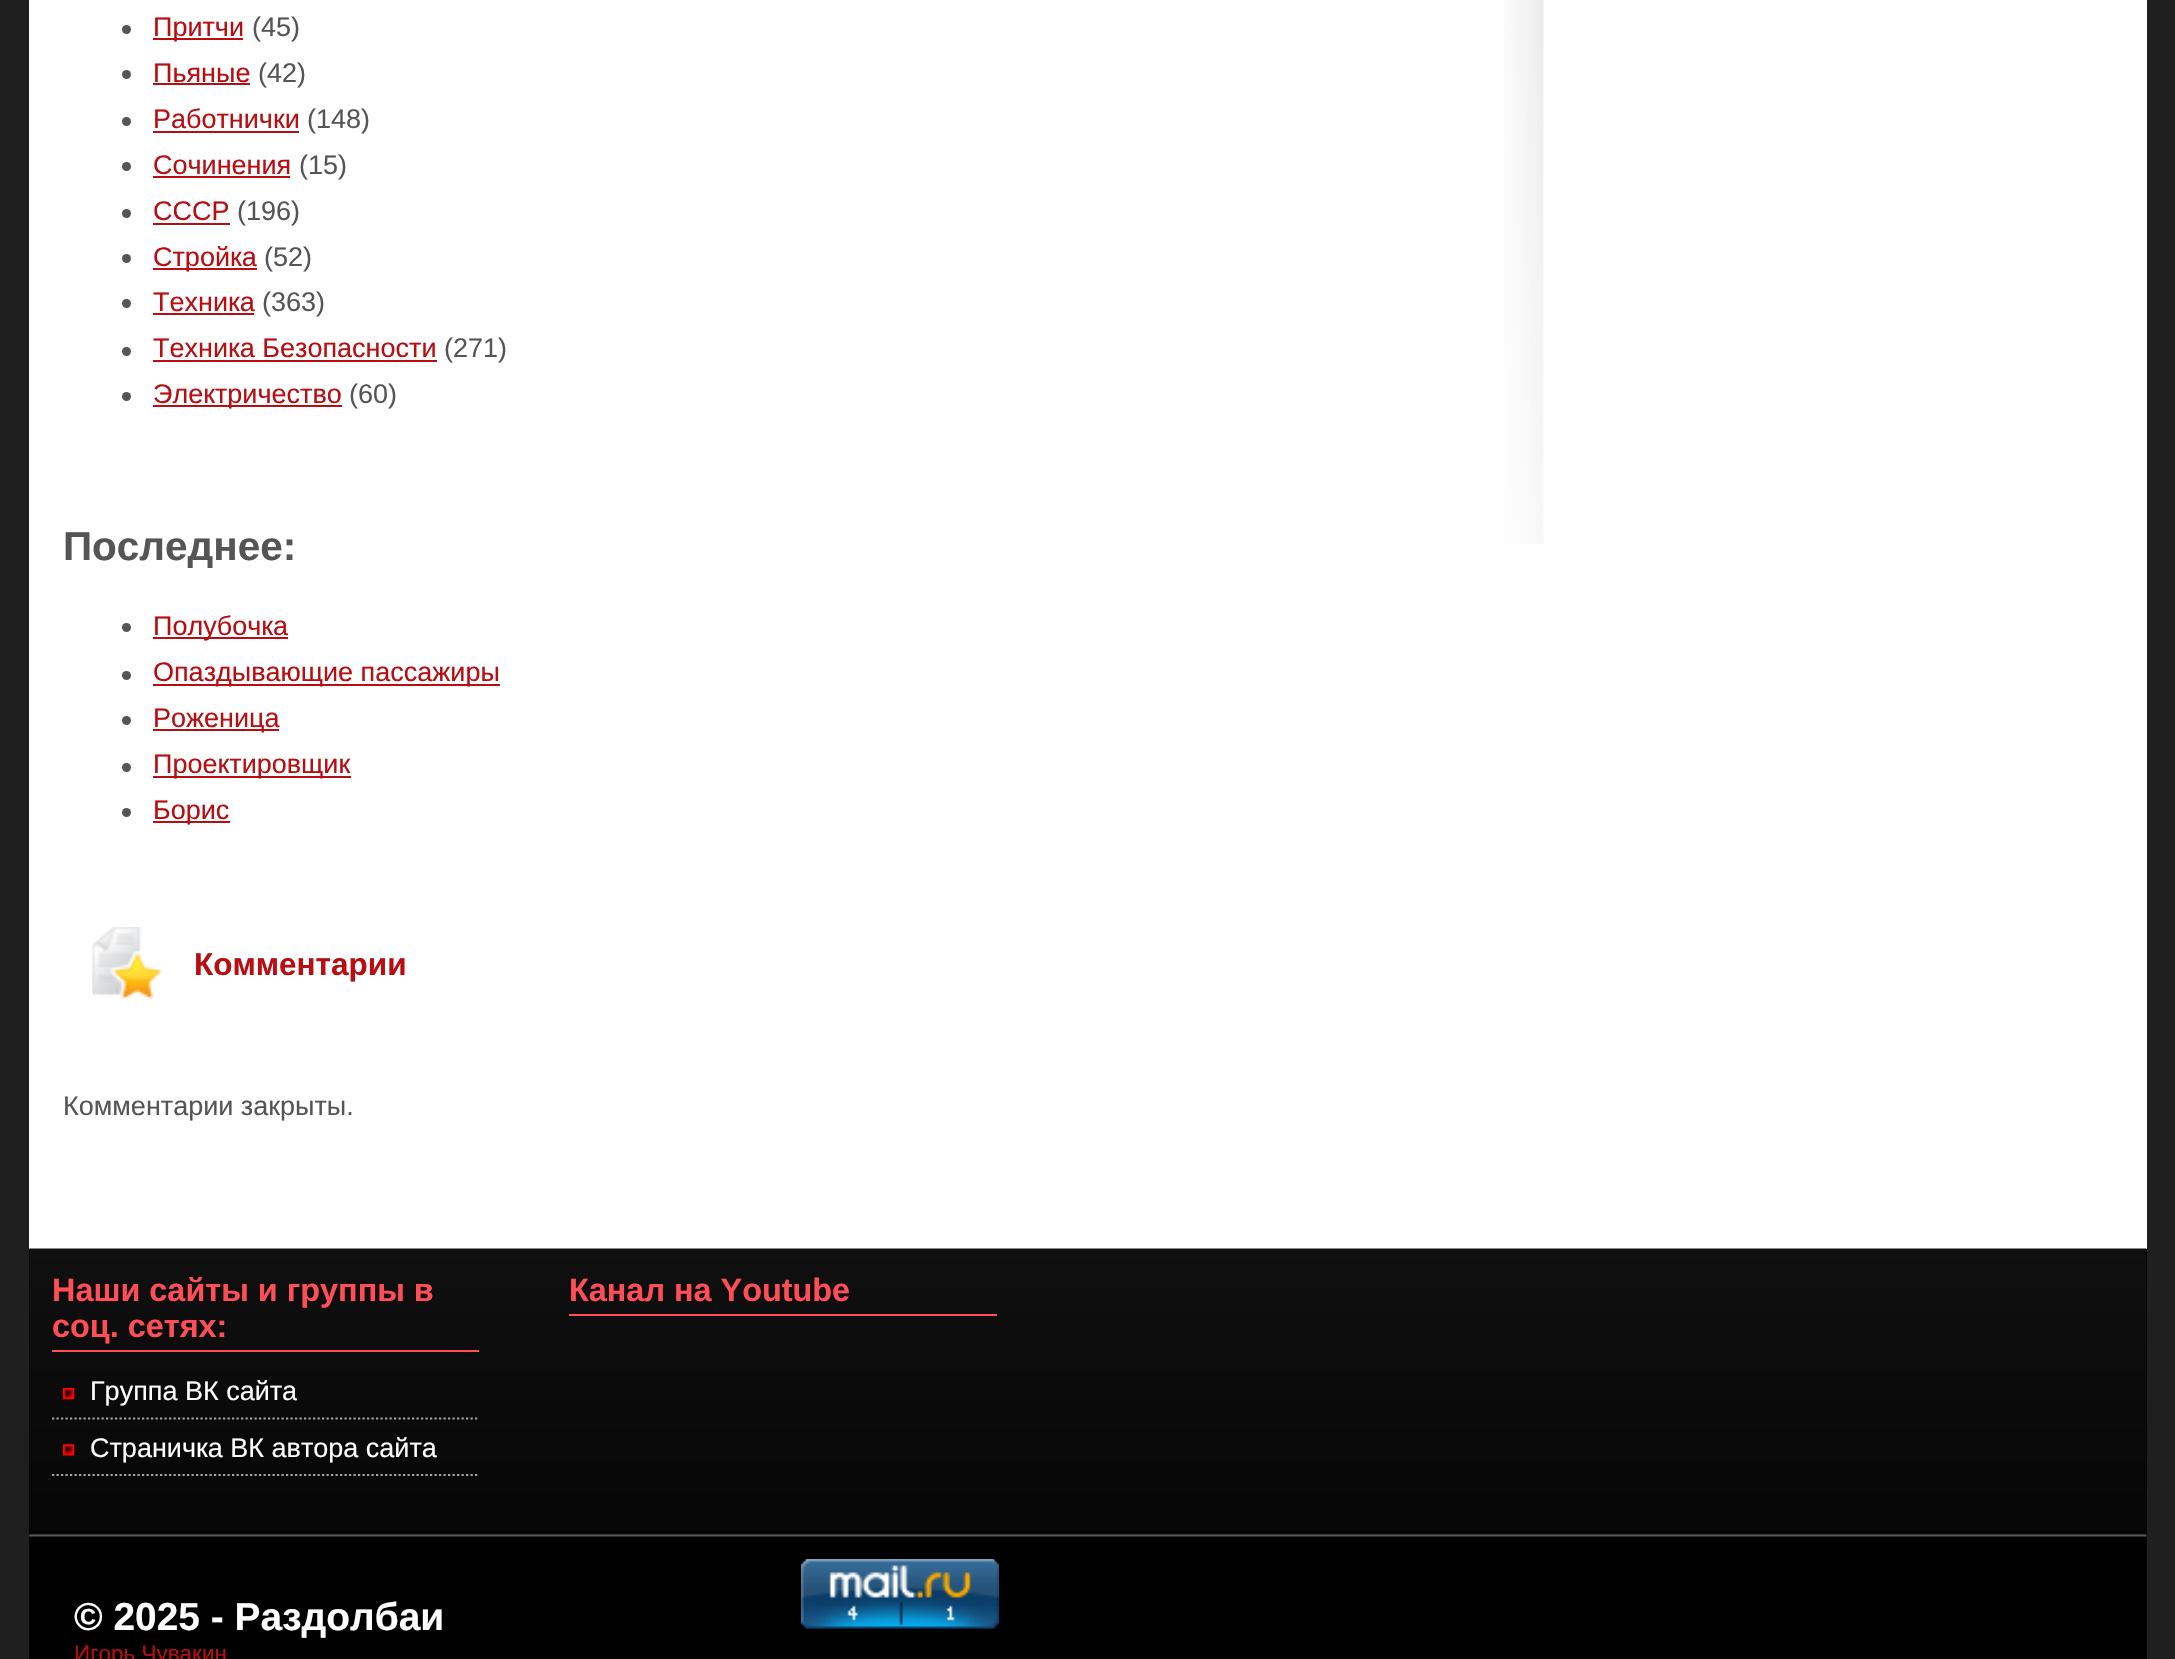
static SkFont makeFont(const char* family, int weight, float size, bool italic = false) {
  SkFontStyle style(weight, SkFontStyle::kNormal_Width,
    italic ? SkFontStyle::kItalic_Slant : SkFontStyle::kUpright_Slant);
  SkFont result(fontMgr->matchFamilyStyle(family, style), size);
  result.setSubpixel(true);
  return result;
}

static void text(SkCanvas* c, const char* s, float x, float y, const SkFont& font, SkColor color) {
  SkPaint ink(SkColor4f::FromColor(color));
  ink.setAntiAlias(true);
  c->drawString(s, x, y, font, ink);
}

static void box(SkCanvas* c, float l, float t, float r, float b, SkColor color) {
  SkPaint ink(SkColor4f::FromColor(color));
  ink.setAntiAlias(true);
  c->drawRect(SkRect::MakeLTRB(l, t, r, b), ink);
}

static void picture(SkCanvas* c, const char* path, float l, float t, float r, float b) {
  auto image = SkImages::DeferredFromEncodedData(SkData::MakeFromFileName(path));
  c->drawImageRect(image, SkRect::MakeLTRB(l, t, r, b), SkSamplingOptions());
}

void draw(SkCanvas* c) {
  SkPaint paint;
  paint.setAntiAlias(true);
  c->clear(0xff1f1f1f);
  box(c, 29, 0, 2147, 1249, 0xffffffff);
  picture(c, "img_01.png", 1504, 0, 1544, 544);
  paint.setColor(0xff555555);
  c->drawCircle(126.5f, 29.5f, 4.5f, paint);
  box(c, 153, 38, 243, 40, 0xffba0d11);
  SkFont face1 = makeFont("Liberation Sans", 400, 27);
  text(c, "Притчи", 153, 36, face1, 0xffba0d11);
  text(c, "(45)", 252, 36, face1, 0xff555555);
  c->drawCircle(126.5f, 74.5f, 4.5f, paint);
  text(c, "Пьяные", 153, 82, face1, 0xffba0d11);
  box(c, 153, 83, 250, 85, 0xffba0d11);
  text(c, "(42)", 258, 82, face1, 0xff555555);
  c->drawCircle(126.5f, 121.5f, 4.5f, paint);
  text(c, "Работнички", 153, 128, face1, 0xffba0d11);
  box(c, 153, 131, 299, 133, 0xffba0d11);
  text(c, "(148)", 307, 128, face1, 0xff555555);
  c->drawCircle(126.5f, 166.5f, 4.5f, paint);
  text(c, "Сочинения", 153, 174, face1, 0xffba0d11);
  box(c, 153, 176, 290, 178, 0xffba0d11);
  text(c, "(15)", 299, 174, face1, 0xff555555);
  c->drawCircle(126.5f, 213.5f, 4.5f, paint);
  text(c, "СССР", 153, 220, face1, 0xffba0d11);
  box(c, 153, 223, 230, 225, 0xffba0d11);
  text(c, "(196)", 237, 220, face1, 0xff555555);
  c->drawCircle(126.5f, 258.5f, 4.5f, paint);
  box(c, 153, 268, 257, 270, 0xffba0d11);
  text(c, "Стройка", 153, 266, face1, 0xffba0d11);
  text(c, "(52)", 264, 266, face1, 0xff555555);
  c->drawCircle(126.5f, 303.5f, 4.5f, paint);
  text(c, "Техника", 153, 311, face1, 0xffba0d11);
  box(c, 153, 313, 254, 315, 0xffba0d11);
  text(c, "(363)", 262, 311, face1, 0xff555555);
  c->drawCircle(126.5f, 351.5f, 4.5f, paint);
  text(c, "Техника Безопасности", 153, 357, face1, 0xffba0d11);
  box(c, 153, 360, 437, 362, 0xffba0d11);
  text(c, "(271)", 444, 357, face1, 0xff555555);
  c->drawCircle(126.5f, 396.5f, 4.5f, paint);
  box(c, 153, 405, 342, 407, 0xffba0d11);
  text(c, "Электричество", 153, 403, face1, 0xffba0d11);
  text(c, "(60)", 349, 403, face1, 0xff555555);
  SkFont face2 = makeFont("Liberation Sans", 700, 40.5f);
  text(c, "Последнее:", 63, 560, face2, 0xff555555);
  c->drawCircle(126.5f, 627.5f, 4.5f, paint);
  box(c, 153, 637, 288, 639, 0xffba0d11);
  text(c, "Полубочка", 153, 635, face1, 0xffba0d11);
  c->drawCircle(126.5f, 675.5f, 4.5f, paint);
  box(c, 153, 684, 500, 686, 0xffba0d11);
  text(c, "Опаздывающие пассажиры", 153, 681, face1, 0xffba0d11);
  c->drawCircle(126.5f, 720.5f, 4.5f, paint);
  box(c, 153, 729, 279, 731, 0xffba0d11);
  text(c, "Роженица", 153, 727, face1, 0xffba0d11);
  c->drawCircle(126.5f, 767.5f, 4.5f, paint);
  box(c, 153, 776, 351, 778, 0xffba0d11);
  text(c, "Проектировщик", 153, 773, face1, 0xffba0d11);
  c->drawCircle(126.5f, 812.5f, 4.5f, paint);
  box(c, 153, 821, 230, 823, 0xffba0d11);
  text(c, "Борис", 153, 819, face1, 0xffba0d11);
  picture(c, "img_02.png", 92, 927, 162, 999);
  SkFont face3 = makeFont("Liberation Sans", 700, 31.5f);
  text(c, "Комментарии", 194, 975, face3, 0xffba0d11);
  text(c, "Комментарии закрыты.", 63, 1115, face1, 0xff555555);
  box(c, 29, 1249, 2147, 1659, 0xff000000);
  picture(c, "img_03.png", 29, 1248, 2147, 1532);
  box(c, 52, 1350, 479, 1352, 0xffff4e55);
  SkFont face4 = makeFont("Liberation Sans", 700, 32.4f);
  text(c, "Наши сайты и группы в", 52, 1301, face4, 0xffff4e55);
  text(c, "соц. сетях:", 52, 1337, face4, 0xffff4e55);
  paint.setStyle(SkPaint::kStroke_Style);
  paint.setStrokeWidth(2.2f);
  paint.setColor(0xffa6a6a6);
  paint.setPathEffect(SkDashPathEffect::Make({{2.25f, 2.25f}}, 0));
  c->drawPath(SkPathBuilder().moveTo(52, 1418.5f).lineTo(479, 1418.5f).detach(), paint);
  paint.setPathEffect(nullptr);
  picture(c, "img_04.png", 63, 1388, 75, 1400);
  text(c, "Группа ВК сайта", 90, 1400, face1, 0xffffffff);
  paint.setPathEffect(SkDashPathEffect::Make({{2.25f, 2.25f}}, 0));
  c->drawPath(SkPathBuilder().moveTo(52, 1475).lineTo(479, 1475).detach(), paint);
  paint.setPathEffect(nullptr);
  picture(c, "img_05.png", 63, 1444, 75, 1456);
  text(c, "Страничка ВК автора сайта", 90, 1457, face1, 0xffffffff);
  box(c, 569, 1314, 997, 1316, 0xffff4e55);
  text(c, "Канал на Youtube", 569, 1301, face4, 0xffff4e55);
  picture(c, "img_06.png", 29, 1533, 2147, 1537);
  SkFont face5 = makeFont("Liberation Sans", 700, 38.9f);
  text(c, "© 2025 - Раздолбаи", 74, 1630, face5, 0xffffffff);
  picture(c, "img_07.png", 801, 1559, 999, 1629);
  SkFont face6 = makeFont("Liberation Sans", 400, 22.5f);
  text(c, "Игорь Чувакин", 74, 1661, face6, 0xffba0d11);
}
